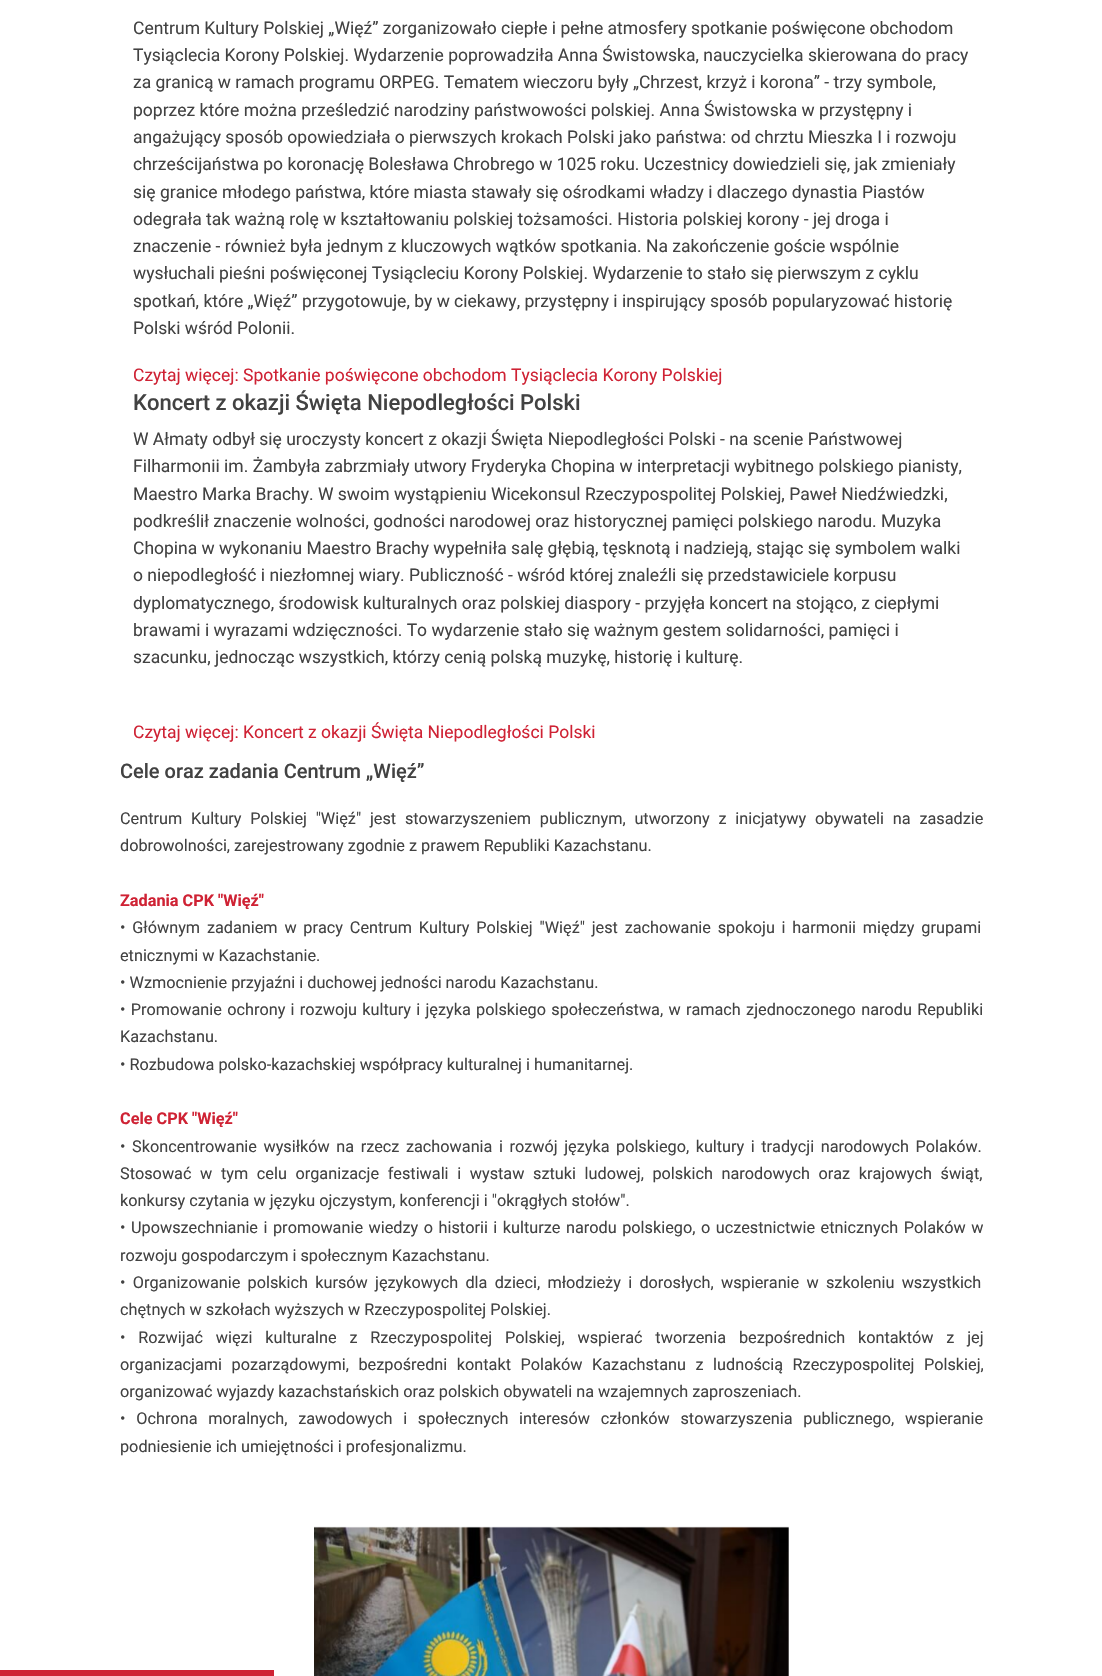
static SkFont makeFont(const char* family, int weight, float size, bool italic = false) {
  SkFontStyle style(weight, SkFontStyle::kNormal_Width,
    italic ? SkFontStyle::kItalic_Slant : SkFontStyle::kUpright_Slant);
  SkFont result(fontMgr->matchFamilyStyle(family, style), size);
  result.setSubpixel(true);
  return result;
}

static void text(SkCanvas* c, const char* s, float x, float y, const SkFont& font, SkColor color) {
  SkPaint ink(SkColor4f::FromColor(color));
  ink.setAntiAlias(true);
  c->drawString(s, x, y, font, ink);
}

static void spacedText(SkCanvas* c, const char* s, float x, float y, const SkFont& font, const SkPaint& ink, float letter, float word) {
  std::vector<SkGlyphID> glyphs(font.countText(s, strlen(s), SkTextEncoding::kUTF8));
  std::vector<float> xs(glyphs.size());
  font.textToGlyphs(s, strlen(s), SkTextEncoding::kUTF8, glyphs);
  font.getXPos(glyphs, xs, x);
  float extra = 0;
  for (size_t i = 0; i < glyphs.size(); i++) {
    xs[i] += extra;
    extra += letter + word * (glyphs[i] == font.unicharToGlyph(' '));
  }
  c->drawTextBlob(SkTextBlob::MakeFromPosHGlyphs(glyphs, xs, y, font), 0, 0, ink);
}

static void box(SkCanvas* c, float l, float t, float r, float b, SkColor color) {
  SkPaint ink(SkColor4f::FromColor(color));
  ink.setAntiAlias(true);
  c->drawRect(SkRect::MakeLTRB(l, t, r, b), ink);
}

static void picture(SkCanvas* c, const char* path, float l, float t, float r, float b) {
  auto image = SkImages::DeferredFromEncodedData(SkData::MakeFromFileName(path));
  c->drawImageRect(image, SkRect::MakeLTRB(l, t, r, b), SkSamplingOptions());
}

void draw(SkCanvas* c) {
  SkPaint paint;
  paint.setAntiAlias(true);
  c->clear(0xffffffff);
  SkFont face1 = makeFont("Roboto", 400, 17.5f);
  text(c, "Centrum Kultury Polskiej „Więź” zorganizowało ciepłe i pełne atmosfery spotkanie poświęcone obchodom", 133, 34, face1, 0xff424242);
  text(c, "Tysiąclecia Korony Polskiej. Wydarzenie poprowadziła Anna Świstowska, nauczycielka skierowana do pracy", 133, 61, face1, 0xff424242);
  text(c, "za granicą w ramach programu ORPEG. Tematem wieczoru były „Chrzest, krzyż i korona” - trzy symbole,", 133, 88, face1, 0xff424242);
  text(c, "poprzez które można prześledzić narodziny państwowości polskiej. Anna Świstowska w przystępny i", 133, 116, face1, 0xff424242);
  text(c, "angażujący sposób opowiedziała o pierwszych krokach Polski jako państwa: od chrztu Mieszka I i rozwoju", 133, 143, face1, 0xff424242);
  text(c, "chrześcijaństwa po koronację Bolesława Chrobrego w 1025 roku. Uczestnicy dowiedzieli się, jak zmieniały", 133, 170, face1, 0xff424242);
  text(c, "się granice młodego państwa, które miasta stawały się ośrodkami władzy i dlaczego dynastia Piastów", 133, 198, face1, 0xff424242);
  text(c, "odegrała tak ważną rolę w kształtowaniu polskiej tożsamości. Historia polskiej korony - jej droga i", 133, 225, face1, 0xff424242);
  text(c, "znaczenie - również była jednym z kluczowych wątków spotkania. Na zakończenie goście wspólnie", 133, 252, face1, 0xff424242);
  text(c, "wysłuchali pieśni poświęconej Tysiącleciu Korony Polskiej. Wydarzenie to stało się pierwszym z cyklu", 133, 279, face1, 0xff424242);
  text(c, "spotkań, które „Więź” przygotowuje, by w ciekawy, przystępny i inspirujący sposób popularyzować historię", 133, 307, face1, 0xff424242);
  text(c, "Polski wśród Polonii.", 133, 334, face1, 0xff424242);
  text(c, "Czytaj więcej: Spotkanie poświęcone obchodom Tysiąclecia Korony Polskiej", 133, 381, face1, 0xffcf2234);
  SkFont face2 = makeFont("Roboto", 500, 22);
  text(c, "Koncert z okazji Święta Niepodległości Polski", 133, 410, face2, 0xff424242);
  text(c, "W Ałmaty odbył się uroczysty koncert z okazji Święta Niepodległości Polski - na scenie Państwowej", 133, 445, face1, 0xff424242);
  text(c, "Filharmonii im. Żambyła zabrzmiały utwory Fryderyka Chopina w interpretacji wybitnego polskiego pianisty,", 133, 472, face1, 0xff424242);
  text(c, "Maestro Marka Brachy. W swoim wystąpieniu Wicekonsul Rzeczypospolitej Polskiej, Paweł Niedźwiedzki,", 133, 500, face1, 0xff424242);
  text(c, "podkreślił znaczenie wolności, godności narodowej oraz historycznej pamięci polskiego narodu. Muzyka", 133, 527, face1, 0xff424242);
  text(c, "Chopina w wykonaniu Maestro Brachy wypełniła salę głębią, tęsknotą i nadzieją, stając się symbolem walki", 133, 554, face1, 0xff424242);
  text(c, "o niepodległość i niezłomnej wiary. Publiczność - wśród której znaleźli się przedstawiciele korpusu", 133, 581, face1, 0xff424242);
  text(c, "dyplomatycznego, środowisk kulturalnych oraz polskiej diaspory - przyjęła koncert na stojąco, z ciepłymi", 133, 609, face1, 0xff424242);
  text(c, "brawami i wyrazami wdzięczności. To wydarzenie stało się ważnym gestem solidarności, pamięci i", 133, 636, face1, 0xff424242);
  text(c, "szacunku, jednocząc wszystkich, którzy cenią polską muzykę, historię i kulturę.", 133, 663, face1, 0xff424242);
  text(c, "Czytaj więcej: Koncert z okazji Święta Niepodległości Polski", 133, 738, face1, 0xffcf2234);
  SkFont face3 = makeFont("Roboto", 500, 20);
  text(c, "Cele oraz zadania Centrum „Więź”", 120, 778, face3, 0xff424242);
  SkFont face4 = makeFont("Roboto", 400, 16.25f);
  paint.setColor(0xff424242);
  spacedText(c, "Centrum Kultury Polskiej \"Więź\" jest stowarzyszeniem publicznym, utworzony z inicjatywy obywateli na zasadzie", 120, 824, face4, paint, 0, 4.75f);
  text(c, "dobrowolności, zarejestrowany zgodnie z prawem Republiki Kazachstanu.", 120, 851, face4, 0xff424242);
  SkFont face5 = makeFont("Roboto", 700, 16.25f);
  text(c, "Zadania CPK \"Więź\"", 120, 906, face5, 0xffcf2234);
  spacedText(c, "• Głównym zadaniem w pracy Centrum Kultury Polskiej \"Więź\" jest zachowanie spokoju i harmonii między grupami", 120, 933, face4, paint, 0, 2.75f);
  text(c, "etnicznymi w Kazachstanie.", 120, 961, face4, 0xff424242);
  text(c, "• Wzmocnienie przyjaźni i duchowej jedności narodu Kazachstanu.", 120, 988, face4, 0xff424242);
  spacedText(c, "• Promowanie ochrony i rozwoju kultury i języka polskiego społeczeństwa, w ramach zjednoczonego narodu Republiki", 120, 1015, face4, paint, 0, 1.25f);
  text(c, "Kazachstanu.", 120, 1042, face4, 0xff424242);
  text(c, "• Rozbudowa polsko-kazachskiej współpracy kulturalnej i humanitarnej.", 120, 1070, face4, 0xff424242);
  text(c, "Cele CPK \"Więź\"", 120, 1124, face5, 0xffcf2234);
  spacedText(c, "• Skoncentrowanie wysiłków na rzecz zachowania i rozwój języka polskiego, kultury i tradycji narodowych Polaków.", 120, 1152, face4, paint, 0, 2.5f);
  spacedText(c, "Stosować w tym celu organizacje festiwali i wystaw sztuki ludowej, polskich narodowych oraz krajowych świąt,", 120, 1179, face4, paint, 0, 4.6f);
  text(c, "konkursy czytania w języku ojczystym, konferencji i \"okrągłych stołów\".", 120, 1206, face4, 0xff424242);
  spacedText(c, "• Upowszechnianie i promowanie wiedzy o historii i kulturze narodu polskiego, o uczestnictwie etnicznych Polaków w", 120, 1233, face4, paint, 0, 1.5f);
  text(c, "rozwoju gospodarczym i społecznym Kazachstanu.", 120, 1261, face4, 0xff424242);
  spacedText(c, "• Organizowanie polskich kursów językowych dla dzieci, młodzieży i dorosłych, wspieranie w szkoleniu wszystkich", 120, 1288, face4, paint, 0, 3.25f);
  text(c, "chętnych w szkołach wyższych w Rzeczypospolitej Polskiej.", 120, 1315, face4, 0xff424242);
  spacedText(c, "• Rozwijać więzi kulturalne z Rzeczypospolitej Polskiej, wspierać tworzenia bezpośrednich kontaktów z jej", 120, 1343, face4, paint, 0, 8.75f);
  spacedText(c, "organizacjami pozarządowymi, bezpośredni kontakt Polaków Kazachstanu z ludnością Rzeczypospolitej Polskiej,", 120, 1370, face4, paint, 0, 5.5f);
  text(c, "organizować wyjazdy kazachstańskich oraz polskich obywateli na wzajemnych zaproszeniach.", 120, 1397, face4, 0xff424242);
  spacedText(c, "• Ochrona moralnych, zawodowych i społecznych interesów członków stowarzyszenia publicznego, wspieranie", 120, 1424, face4, paint, 0, 6.75f);
  text(c, "podniesienie ich umiejętności i profesjonalizmu.", 120, 1452, face4, 0xff424242);
  picture(c, "img_01.png", 314, 1526, 789, 1676);
  box(c, 0, 1670, 274, 1676, 0xffcf2234);
}
